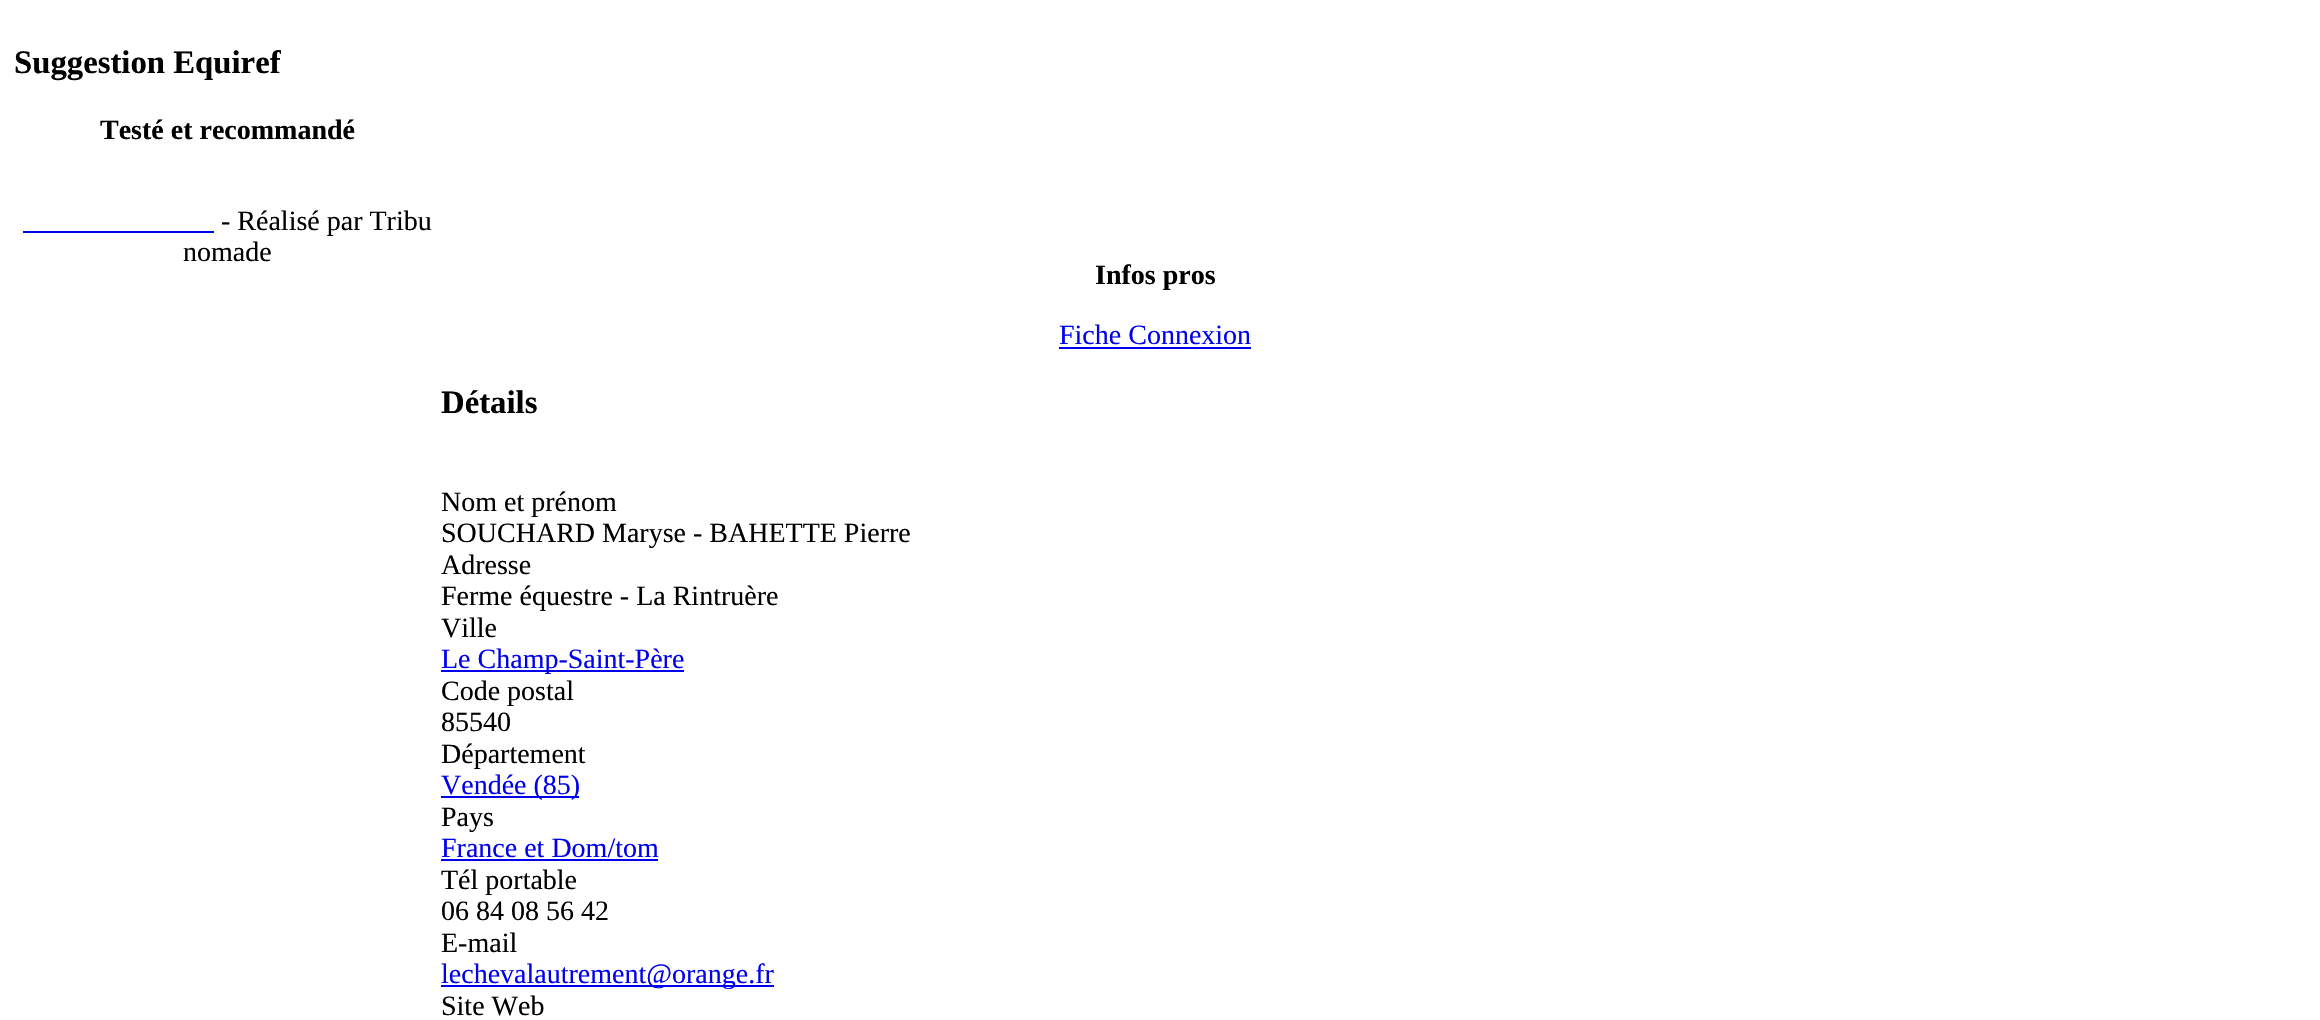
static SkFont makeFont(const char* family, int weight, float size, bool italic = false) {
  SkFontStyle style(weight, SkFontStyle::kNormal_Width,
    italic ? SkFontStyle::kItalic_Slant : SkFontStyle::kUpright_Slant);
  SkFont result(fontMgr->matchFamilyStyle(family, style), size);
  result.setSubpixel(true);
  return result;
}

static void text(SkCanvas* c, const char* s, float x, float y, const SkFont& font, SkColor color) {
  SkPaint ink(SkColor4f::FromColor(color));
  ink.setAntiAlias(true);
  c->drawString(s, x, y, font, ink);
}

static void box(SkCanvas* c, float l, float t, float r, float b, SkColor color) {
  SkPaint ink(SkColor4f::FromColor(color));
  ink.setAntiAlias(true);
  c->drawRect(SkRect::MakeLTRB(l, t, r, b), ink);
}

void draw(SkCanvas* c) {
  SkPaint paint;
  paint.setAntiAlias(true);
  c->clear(0xffffffff);
  SkFont face1 = makeFont("Liberation Serif", 700, 32.75f);
  text(c, "Suggestion Equiref", 14, 73, face1, 0xff000000);
  SkFont face2 = makeFont("Liberation Serif", 700, 28);
  text(c, "Testé et recommandé", 100, 139, face2, 0xff000000);
  text(c, "Infos pros", 1095, 284, face2, 0xff000000);
  SkFont face3 = makeFont("Liberation Serif", 400, 28);
  text(c, "Fiche Connexion", 1059, 344, face3, 0xff0000ee);
  box(c, 1059, 347, 1251, 349, 0xff0000ee);
  text(c, "Détails", 441, 413, face1, 0xff000000);
  text(c, "Nom et prénom", 441, 511, face3, 0xff000000);
  text(c, "SOUCHARD Maryse - BAHETTE Pierre", 441, 542, face3, 0xff000000);
  text(c, "Adresse", 441, 574, face3, 0xff000000);
  text(c, "Ferme équestre - La Rintruère", 441, 605, face3, 0xff000000);
  text(c, "Ville", 441, 637, face3, 0xff000000);
  box(c, 441, 670, 684, 672, 0xff0000ee);
  text(c, "Le Champ-Saint-Père", 441, 668, face3, 0xff0000ee);
  text(c, "Code postal", 441, 700, face3, 0xff000000);
  text(c, "85540", 441, 731, face3, 0xff000000);
  text(c, "Département", 441, 763, face3, 0xff000000);
  box(c, 441, 796, 579, 798, 0xff0000ee);
  text(c, "Vendée (85)", 441, 794, face3, 0xff0000ee);
  text(c, "Pays", 441, 826, face3, 0xff000000);
  text(c, "France et Dom/tom", 441, 857, face3, 0xff0000ee);
  box(c, 441, 859, 658, 861, 0xff0000ee);
  text(c, "Tél portable", 441, 889, face3, 0xff000000);
  text(c, "06 84 08 56 42", 441, 920, face3, 0xff000000);
  text(c, "E-mail", 441, 952, face3, 0xff000000);
  box(c, 441, 985, 774, 987, 0xff0000ee);
  text(c, "lechevalautrement@orange.fr", 441, 983, face3, 0xff0000ee);
  text(c, "Site Web", 441, 1015, face3, 0xff000000);
  box(c, 23, 231, 214, 233, 0xff0000ee);
  text(c, "- Réalisé par Tribu", 221, 230, face3, 0xff000000);
  text(c, "nomade", 183, 261, face3, 0xff000000);
}
